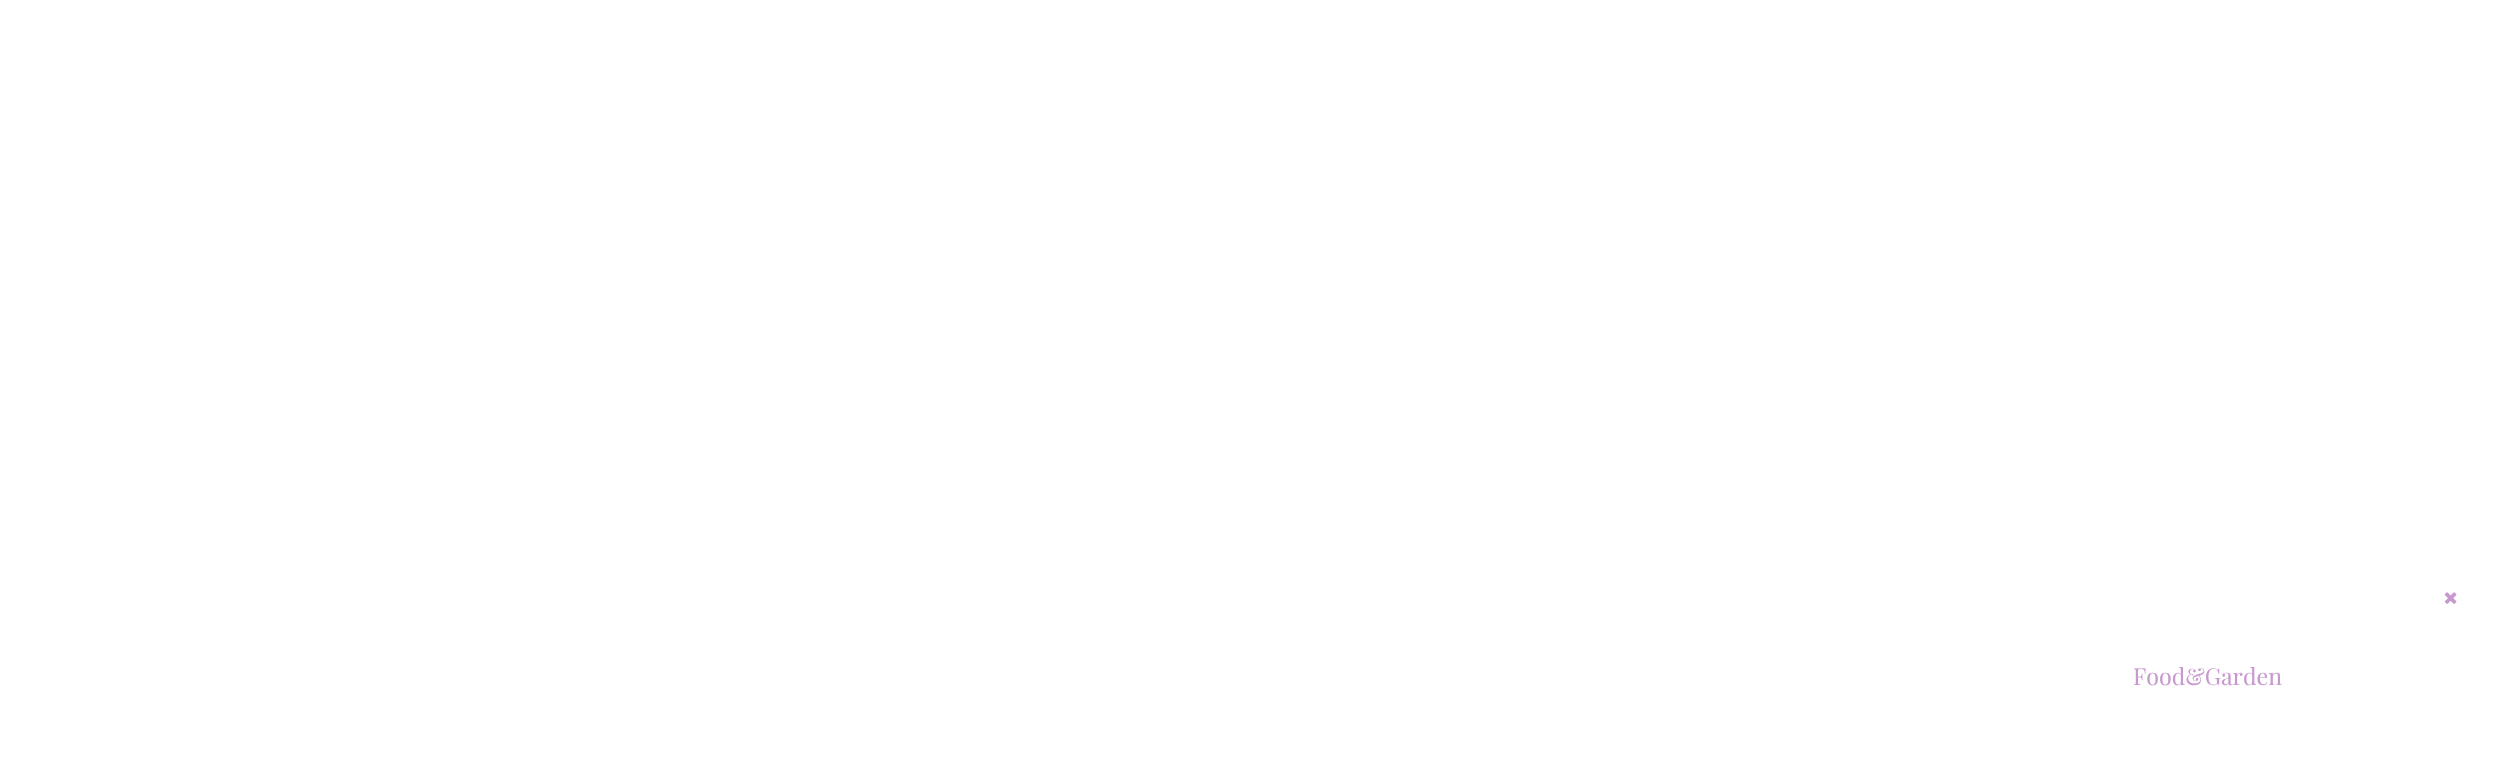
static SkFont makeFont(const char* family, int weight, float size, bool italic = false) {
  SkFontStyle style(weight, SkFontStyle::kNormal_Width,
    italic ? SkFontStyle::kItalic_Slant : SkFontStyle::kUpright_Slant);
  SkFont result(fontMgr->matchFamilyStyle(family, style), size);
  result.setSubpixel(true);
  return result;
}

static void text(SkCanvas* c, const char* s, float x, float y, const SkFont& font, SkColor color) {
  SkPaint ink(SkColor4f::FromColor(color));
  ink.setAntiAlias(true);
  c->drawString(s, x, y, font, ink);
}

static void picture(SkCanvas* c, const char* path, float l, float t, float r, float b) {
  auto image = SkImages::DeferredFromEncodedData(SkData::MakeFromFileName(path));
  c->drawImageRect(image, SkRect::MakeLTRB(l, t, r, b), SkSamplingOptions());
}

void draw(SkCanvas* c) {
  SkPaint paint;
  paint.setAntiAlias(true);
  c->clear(0xffffffff);
  picture(c, "img_01.png", 2444, 592, 2457, 604);
  SkFont face1 = makeFont("Playfair Display", 400, 23.25f);
  text(c, "Food&Garden", 2133, 685, face1, 0xffc899cf);
}
